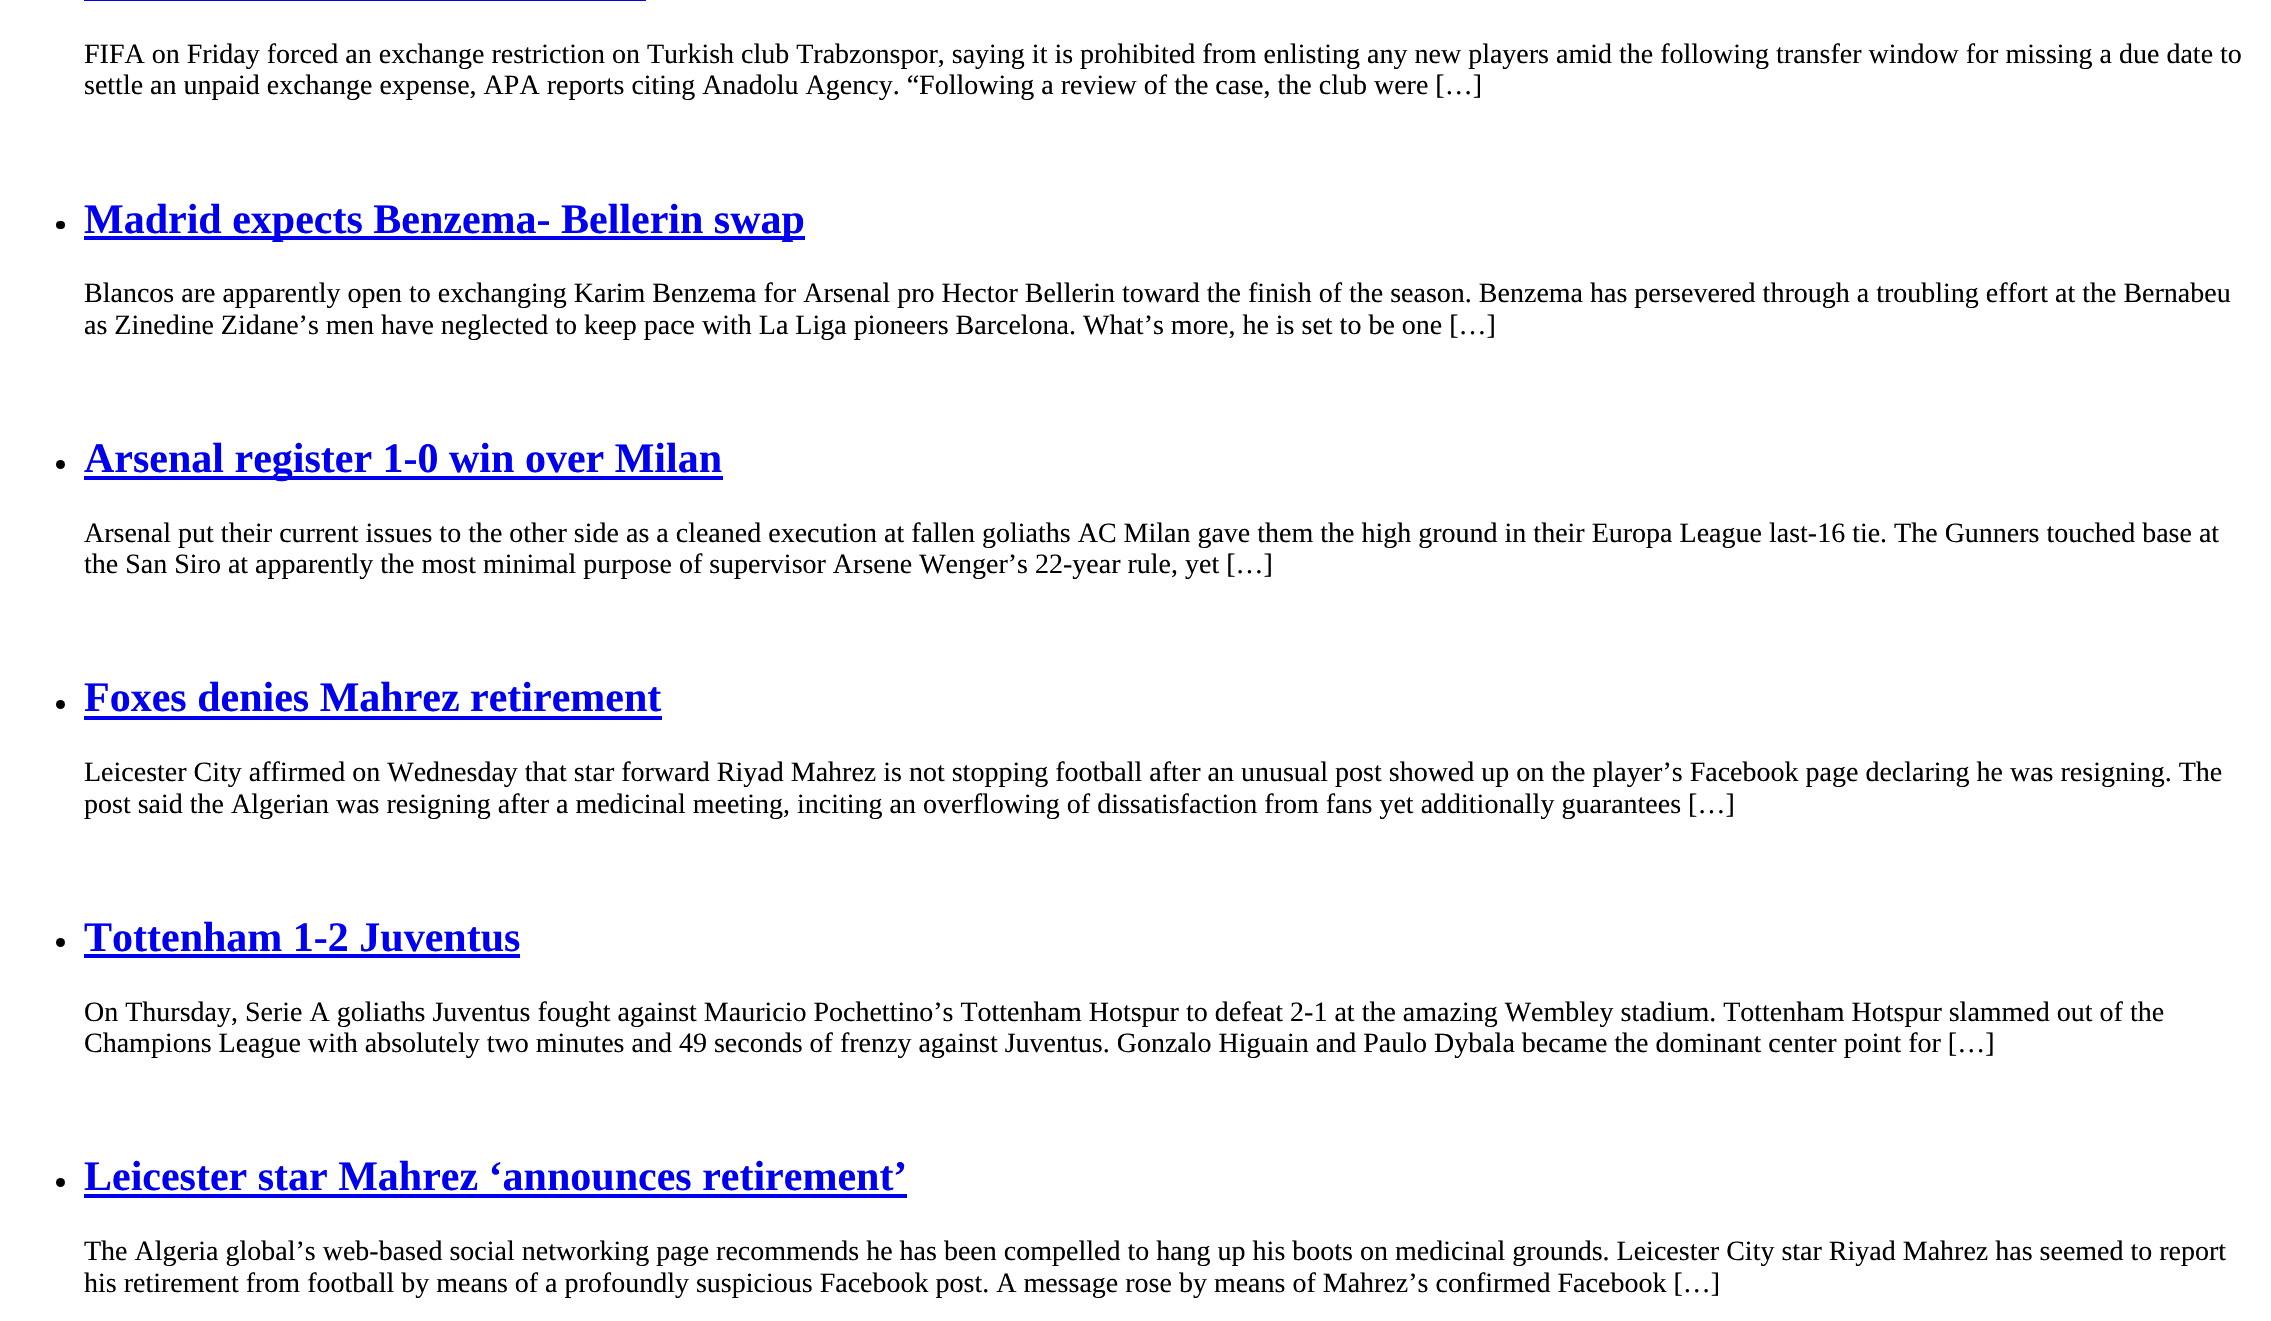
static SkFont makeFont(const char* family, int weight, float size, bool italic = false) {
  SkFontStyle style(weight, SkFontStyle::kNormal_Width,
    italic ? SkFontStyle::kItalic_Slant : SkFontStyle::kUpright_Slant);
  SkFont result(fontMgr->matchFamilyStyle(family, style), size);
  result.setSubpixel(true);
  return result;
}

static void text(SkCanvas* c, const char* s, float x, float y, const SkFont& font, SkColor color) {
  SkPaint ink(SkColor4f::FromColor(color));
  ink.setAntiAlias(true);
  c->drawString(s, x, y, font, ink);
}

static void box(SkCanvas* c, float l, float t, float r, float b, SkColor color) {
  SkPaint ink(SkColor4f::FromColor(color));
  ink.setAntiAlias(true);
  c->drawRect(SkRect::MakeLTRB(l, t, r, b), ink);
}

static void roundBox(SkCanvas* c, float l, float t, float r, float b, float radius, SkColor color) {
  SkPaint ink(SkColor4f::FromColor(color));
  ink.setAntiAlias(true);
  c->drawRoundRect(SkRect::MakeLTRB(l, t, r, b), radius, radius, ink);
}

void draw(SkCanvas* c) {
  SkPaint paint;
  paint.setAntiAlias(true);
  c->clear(0xffffffff);
  box(c, 84, 0, 646, 1, 0xff0000ee);
  SkFont face1 = makeFont("Liberation Serif", 400, 28);
  text(c, "FIFA on Friday forced an exchange restriction on Turkish club Trabzonspor, saying it is prohibited from enlisting any new players amid the following transfer window for missing a due date to", 84, 63, face1, 0xff000000);
  text(c, "settle an unpaid exchange expense, APA reports citing Anadolu Agency. “Following a review of the case, the club were […]", 84, 94, face1, 0xff000000);
  roundBox(c, 56, 221, 65, 229, 4, 0xff000000);
  box(c, 84, 236, 805, 240, 0xff0000ee);
  SkFont face2 = makeFont("Liberation Serif", 700, 42);
  text(c, "Madrid expects Benzema- Bellerin swap", 84, 233, face2, 0xff0000ee);
  text(c, "Blancos are apparently open to exchanging Karim Benzema for Arsenal pro Hector Bellerin toward the finish of the season. Benzema has persevered through a troubling effort at the Bernabeu", 84, 302, face1, 0xff000000);
  text(c, "as Zinedine Zidane’s men have neglected to keep pace with La Liga pioneers Barcelona. What’s more, he is set to be one […]", 84, 334, face1, 0xff000000);
  paint.setColor(0xff000000);
  c->drawCircle(60.5f, 464.5f, 4.5f, paint);
  box(c, 84, 476, 723, 480, 0xff0000ee);
  text(c, "Arsenal register 1-0 win over Milan", 84, 472, face2, 0xff0000ee);
  text(c, "Arsenal put their current issues to the other side as a cleaned execution at fallen goliaths AC Milan gave them the high ground in their Europa League last-16 tie. The Gunners touched base at", 84, 542, face1, 0xff000000);
  text(c, "the San Siro at apparently the most minimal purpose of supervisor Arsene Wenger’s 22-year rule, yet […]", 84, 573, face1, 0xff000000);
  c->drawCircle(60.5f, 704.5f, 4.5f, paint);
  text(c, "Foxes denies Mahrez retirement", 84, 711, face2, 0xff0000ee);
  box(c, 84, 716, 662, 720, 0xff0000ee);
  text(c, "Leicester City affirmed on Wednesday that star forward Riyad Mahrez is not stopping football after an unusual post showed up on the player’s Facebook page declaring he was resigning. The", 84, 781, face1, 0xff000000);
  text(c, "post said the Algerian was resigning after a medicinal meeting, inciting an overflowing of dissatisfaction from fans yet additionally guarantees […]", 84, 813, face1, 0xff000000);
  c->drawCircle(60.5f, 942.5f, 4.5f, paint);
  text(c, "Tottenham 1-2 Juventus", 84, 951, face2, 0xff0000ee);
  box(c, 84, 954, 520, 958, 0xff0000ee);
  text(c, "On Thursday, Serie A goliaths Juventus fought against Mauricio Pochettino’s Tottenham Hotspur to defeat 2-1 at the amazing Wembley stadium. Tottenham Hotspur slammed out of the", 84, 1021, face1, 0xff000000);
  text(c, "Champions League with absolutely two minutes and 49 seconds of frenzy against Juventus. Gonzalo Higuain and Paulo Dybala became the dominant center point for […]", 84, 1052, face1, 0xff000000);
  c->drawCircle(60.5f, 1182.5f, 4.5f, paint);
  text(c, "Leicester star Mahrez ‘announces retirement’", 84, 1190, face2, 0xff0000ee);
  box(c, 84, 1194, 907, 1198, 0xff0000ee);
  text(c, "The Algeria global’s web-based social networking page recommends he has been compelled to hang up his boots on medicinal grounds. Leicester City star Riyad Mahrez has seemed to report", 84, 1260, face1, 0xff000000);
  text(c, "his retirement from football by means of a profoundly suspicious Facebook post. A message rose by means of Mahrez’s confirmed Facebook […]", 84, 1292, face1, 0xff000000);
}
